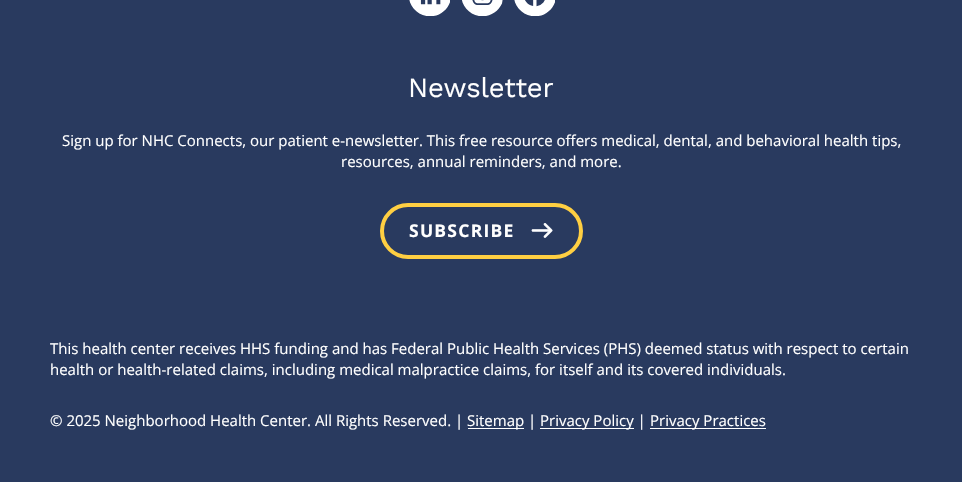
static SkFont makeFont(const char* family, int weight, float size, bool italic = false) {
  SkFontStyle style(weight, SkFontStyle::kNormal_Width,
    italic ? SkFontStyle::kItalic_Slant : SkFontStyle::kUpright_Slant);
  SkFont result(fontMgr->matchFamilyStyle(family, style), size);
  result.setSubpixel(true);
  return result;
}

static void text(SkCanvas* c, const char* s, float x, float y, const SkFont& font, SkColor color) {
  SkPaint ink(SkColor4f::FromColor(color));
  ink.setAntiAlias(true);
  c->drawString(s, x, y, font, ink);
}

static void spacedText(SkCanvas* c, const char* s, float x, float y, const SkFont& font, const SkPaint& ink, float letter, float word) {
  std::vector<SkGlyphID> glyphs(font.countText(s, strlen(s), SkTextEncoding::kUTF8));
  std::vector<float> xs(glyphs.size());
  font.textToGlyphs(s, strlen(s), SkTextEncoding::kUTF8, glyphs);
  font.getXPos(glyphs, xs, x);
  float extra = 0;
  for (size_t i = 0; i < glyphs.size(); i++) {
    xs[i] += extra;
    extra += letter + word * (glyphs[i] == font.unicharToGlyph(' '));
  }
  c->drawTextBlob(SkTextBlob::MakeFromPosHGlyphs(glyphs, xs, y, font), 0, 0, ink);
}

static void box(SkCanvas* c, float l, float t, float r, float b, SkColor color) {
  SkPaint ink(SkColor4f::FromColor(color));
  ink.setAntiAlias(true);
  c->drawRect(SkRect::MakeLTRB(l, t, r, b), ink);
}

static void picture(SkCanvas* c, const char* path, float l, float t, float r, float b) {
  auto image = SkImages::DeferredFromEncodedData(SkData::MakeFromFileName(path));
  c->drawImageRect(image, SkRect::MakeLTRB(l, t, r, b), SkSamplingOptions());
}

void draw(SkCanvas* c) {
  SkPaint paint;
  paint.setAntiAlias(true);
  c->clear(0xff293a5f);
  picture(c, "img_01.png", 409, 0, 450, 16);
  picture(c, "img_02.png", 462, 0, 503, 16);
  picture(c, "img_03.png", 514, 0, 555, 16);
  SkFont face1 = makeFont("Work Sans", 400, 27.5f);
  paint.setColor(0xffffffff);
  spacedText(c, "Newsletter", 408, 97, face1, paint, -0.25f, 0);
  SkFont face2 = makeFont("Open Sans", 400, 15);
  text(c, "Sign up for NHC Connects, our patient e-newsletter. This free resource offers medical, dental, and behavioral health tips,", 62, 146, face2, 0xffffffff);
  text(c, "resources, annual reminders, and more.", 341, 167, face2, 0xffffffff);
  paint.setStyle(SkPaint::kStroke_Style);
  paint.setStrokeWidth(4);
  paint.setColor(0xffffcf42);
  c->drawRoundRect(SkRect::MakeLTRB(382, 205, 581, 257), 26, 26, paint);
  SkFont face3 = makeFont("Open Sans", 700, 17.5f);
  paint.setStyle(SkPaint::kFill_Style);
  paint.setColor(0xffffffff);
  spacedText(c, "SUBSCRIBE", 409, 237, face3, paint, 1.25f, 0);
  picture(c, "img_04.png", 531, 223, 553, 238);
  text(c, "This health center receives HHS funding and has Federal Public Health Services (PHS) deemed status with respect to certain", 50, 354, face2, 0xffffffff);
  text(c, "health or health-related claims, including medical malpractice claims, for itself and its covered individuals.", 50, 375, face2, 0xffffffff);
  text(c, "© 2025 Neighborhood Health Center. All Rights Reserved. |", 50, 426, face2, 0xffffffff);
  box(c, 468, 428, 524, 429, 0xffffffff);
  text(c, "Sitemap |", 467, 426, face2, 0xffffffff);
  box(c, 540, 428, 634, 429, 0xffffffff);
  text(c, "Privacy Policy |", 540, 426, face2, 0xffffffff);
  box(c, 650, 428, 766, 429, 0xffffffff);
  text(c, "Privacy Practices", 650, 426, face2, 0xffffffff);
}
